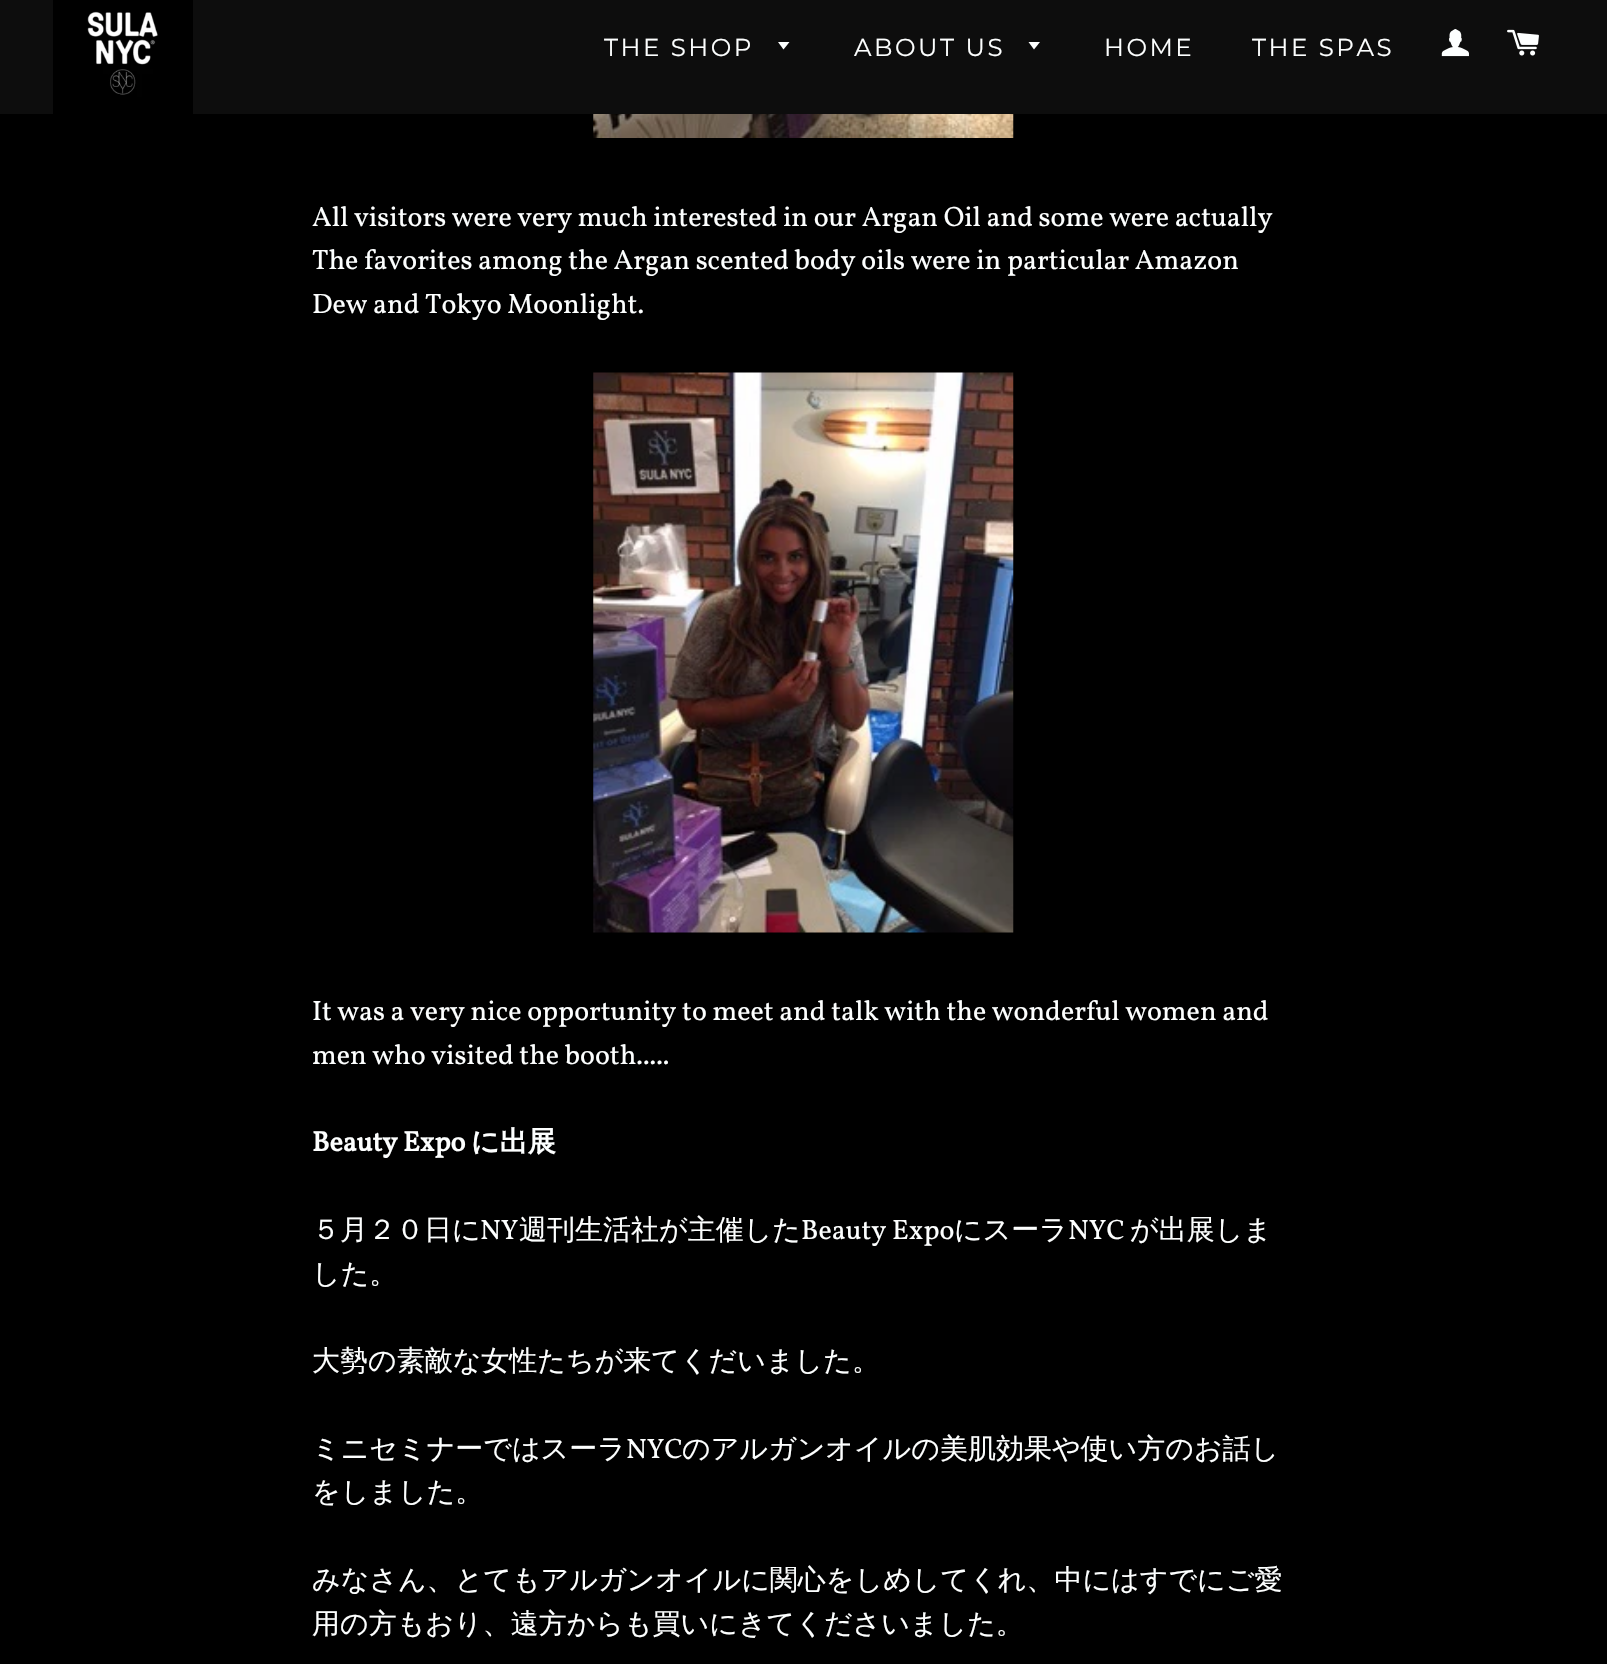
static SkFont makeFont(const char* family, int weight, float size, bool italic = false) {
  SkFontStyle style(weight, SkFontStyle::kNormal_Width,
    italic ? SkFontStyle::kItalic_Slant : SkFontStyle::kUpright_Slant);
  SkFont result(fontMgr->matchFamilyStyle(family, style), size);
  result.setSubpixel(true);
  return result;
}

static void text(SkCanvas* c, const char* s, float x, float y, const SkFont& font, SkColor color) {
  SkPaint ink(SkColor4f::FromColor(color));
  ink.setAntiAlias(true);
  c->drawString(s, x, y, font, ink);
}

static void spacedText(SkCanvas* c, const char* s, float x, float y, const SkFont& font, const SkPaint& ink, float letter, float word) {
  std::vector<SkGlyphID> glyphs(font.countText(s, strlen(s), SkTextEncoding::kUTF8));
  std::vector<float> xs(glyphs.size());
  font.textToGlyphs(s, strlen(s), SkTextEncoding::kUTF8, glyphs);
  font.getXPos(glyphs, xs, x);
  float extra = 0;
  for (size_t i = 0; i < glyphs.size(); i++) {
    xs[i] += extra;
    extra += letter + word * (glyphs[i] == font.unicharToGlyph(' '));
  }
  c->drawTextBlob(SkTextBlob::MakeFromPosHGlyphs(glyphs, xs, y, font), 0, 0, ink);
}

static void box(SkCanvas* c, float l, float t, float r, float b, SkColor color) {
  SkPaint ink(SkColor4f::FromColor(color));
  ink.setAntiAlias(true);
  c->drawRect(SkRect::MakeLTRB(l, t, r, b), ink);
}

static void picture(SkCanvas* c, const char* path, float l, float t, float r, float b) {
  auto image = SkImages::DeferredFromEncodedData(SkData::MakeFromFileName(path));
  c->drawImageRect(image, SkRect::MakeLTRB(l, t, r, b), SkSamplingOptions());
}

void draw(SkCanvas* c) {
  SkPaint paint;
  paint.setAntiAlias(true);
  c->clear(0xff000000);
  box(c, 0, 0, 1607, 114, 0xff0d0d0d);
  picture(c, "img_01.png", 53, 0, 193, 114);
  SkFont face1 = makeFont("Montserrat", 100, 24.5f);
  paint.setColor(0xfffdffff);
  spacedText(c, "THE SHOP", 604, 56, face1, paint, 2.5f, 0);
  c->drawPath(SkPathBuilder().moveTo(778, 42).lineTo(783.5f, 49.5f).lineTo(789.5f, 42).close().detach(), paint);
  spacedText(c, "ABOUT US", 854, 56, face1, paint, 2.5f, 0);
  c->drawPath(SkPathBuilder().moveTo(1028.5f, 42).lineTo(1034, 49.5f).lineTo(1040, 42).close().detach(), paint);
  spacedText(c, "HOME", 1104, 56, face1, paint, 2.5f, 0);
  spacedText(c, "THE SPAS", 1252, 56, face1, paint, 2.5f, 0);
  picture(c, "img_02.png", 1441, 29, 1469, 57);
  picture(c, "img_03.png", 1507, 29, 1539, 56);
  picture(c, "img_04.png", 593, 114, 1014, 138);
  SkFont face2 = makeFont("Vollkorn", 400, 28);
  text(c, "All visitors were very much interested in our Argan Oil and some were actually", 312, 226, face2, 0xfffdffff);
  text(c, "The favorites among the Argan scented body oils were in particular Amazon", 312, 269, face2, 0xfffdffff);
  text(c, "Dew and Tokyo Moonlight.", 312, 313, face2, 0xfffdffff);
  picture(c, "img_05.png", 593, 372, 1014, 933);
  text(c, "It was a very nice opportunity to meet and talk with the wonderful women and", 312, 1020, face2, 0xfffdffff);
  text(c, "men who visited the booth.....", 312, 1064, face2, 0xfffdffff);
  SkFont face3 = makeFont("Vollkorn", 700, 28);
  text(c, "Beauty Expo", 312, 1151, face3, 0xfffdffff);
  SkFont face4 = makeFont("WenQuanYi Zen Hei", 700, 28);
  text(c, "に出展", 471, 1151, face4, 0xfffdffff);
  SkFont face5 = makeFont("WenQuanYi Zen Hei", 500, 28);
  text(c, "５月２０日に", 312, 1239, face5, 0xfffdffff);
  text(c, "NY", 480, 1239, face2, 0xfffdffff);
  text(c, "週刊生活社が主催した", 519, 1239, face5, 0xfffdffff);
  text(c, "Beauty Expo", 801, 1239, face2, 0xfffdffff);
  text(c, "にスーラ", 954, 1239, face5, 0xfffdffff);
  text(c, "NYC", 1068, 1239, face2, 0xfffdffff);
  text(c, "が出展しま", 1130, 1239, face5, 0xfffdffff);
  text(c, "した。", 312, 1283, face5, 0xfffdffff);
  text(c, "大勢の素敵な女性たちが来てくだいました。", 312, 1370, face5, 0xfffdffff);
  text(c, "ミニセミナーではスーラ", 312, 1458, face5, 0xfffdffff);
  text(c, "NYC", 626, 1458, face2, 0xfffdffff);
  text(c, "のアルガンオイルの美肌効果や使い方のお話し", 682, 1458, face5, 0xfffdffff);
  text(c, "をしました。", 312, 1501, face5, 0xfffdffff);
  text(c, "みなさん、とてもアルガンオイルに関心をしめしてくれ、中にはすでにご愛", 312, 1589, face5, 0xfffdffff);
  text(c, "用の方もおり、遠方からも買いにきてくださいました。", 312, 1633, face5, 0xfffdffff);
}
